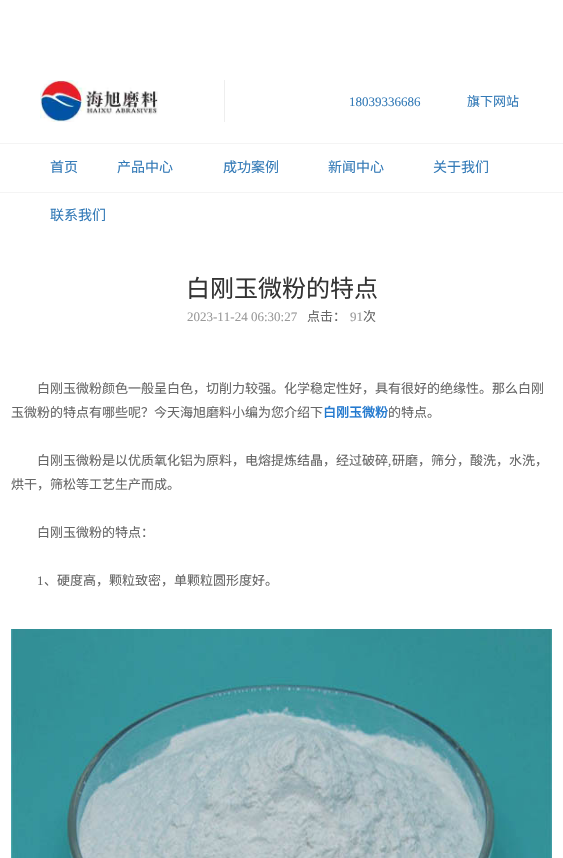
static SkFont makeFont(const char* family, int weight, float size, bool italic = false) {
  SkFontStyle style(weight, SkFontStyle::kNormal_Width,
    italic ? SkFontStyle::kItalic_Slant : SkFontStyle::kUpright_Slant);
  SkFont result(fontMgr->matchFamilyStyle(family, style), size);
  result.setSubpixel(true);
  return result;
}

static void text(SkCanvas* c, const char* s, float x, float y, const SkFont& font, SkColor color) {
  SkPaint ink(SkColor4f::FromColor(color));
  ink.setAntiAlias(true);
  c->drawString(s, x, y, font, ink);
}

static void box(SkCanvas* c, float l, float t, float r, float b, SkColor color) {
  SkPaint ink(SkColor4f::FromColor(color));
  ink.setAntiAlias(true);
  c->drawRect(SkRect::MakeLTRB(l, t, r, b), ink);
}

static void picture(SkCanvas* c, const char* path, float l, float t, float r, float b) {
  auto image = SkImages::DeferredFromEncodedData(SkData::MakeFromFileName(path));
  c->drawImageRect(image, SkRect::MakeLTRB(l, t, r, b), SkSamplingOptions());
}

void draw(SkCanvas* c) {
  SkPaint paint;
  paint.setAntiAlias(true);
  c->clear(0xffffffff);
  box(c, 0, 192, 563, 193, 0xfff4f4f4);
  box(c, 0, 143, 563, 144, 0xfff4f4f4);
  box(c, 224, 80, 225, 122, 0xffeeeeee);
  picture(c, "img_01.png", 40, 80, 158, 122);
  SkFont face1 = makeFont("Liberation Serif", 400, 13);
  text(c, "18039336686", 349, 106, face1, 0xff337ab7);
  SkFont face2 = makeFont("Noto Sans CJK SC", 400, 13);
  text(c, "旗下网站", 467, 106, face2, 0xff337ab7);
  SkFont face3 = makeFont("Noto Sans CJK SC", 400, 14);
  text(c, "首页", 50, 172, face3, 0xff337ab7);
  text(c, "产品中心", 117, 172, face3, 0xff337ab7);
  text(c, "成功案例", 223, 172, face3, 0xff337ab7);
  text(c, "新闻中心", 328, 172, face3, 0xff337ab7);
  text(c, "关于我们", 433, 172, face3, 0xff337ab7);
  text(c, "联系我们", 50, 220, face3, 0xff337ab7);
  SkFont face4 = makeFont("Noto Sans CJK SC", 400, 24);
  text(c, "白刚玉微粉的特点", 186, 297, face4, 0xff333333);
  text(c, "2023-11-24 06:30:27", 187, 321, face1, 0xff999999);
  text(c, "点击：", 307, 321, face2, 0xff666666);
  text(c, "91", 350, 321, face1, 0xff999999);
  text(c, "次", 363, 321, face2, 0xff666666);
  text(c, "白刚玉微粉颜色一般呈白色，切削力较强。化学稳定性好，具有很好的绝缘性。那么白刚", 37, 393, face2, 0xff666666);
  text(c, "玉微粉的特点有哪些呢？今天海旭磨料小编为您介绍下", 11, 417, face2, 0xff666666);
  SkFont face5 = makeFont("Noto Sans CJK SC", 700, 13);
  text(c, "白刚玉微粉", 323, 417, face5, 0xff247acf);
  text(c, "的特点。", 388, 417, face2, 0xff666666);
  text(c, "白刚玉微粉是以优质氧化铝为原料，电熔提炼结晶，经过破碎", 37, 465, face2, 0xff666666);
  text(c, ",", 388, 465, face1, 0xff666666);
  text(c, "研磨，筛分，酸洗，水洗，", 392, 465, face2, 0xff666666);
  text(c, "烘干，筛松等工艺生产而成。", 11, 489, face2, 0xff666666);
  text(c, "白刚玉微粉的特点：", 37, 537, face2, 0xff666666);
  text(c, "1", 37, 585, face1, 0xff666666);
  text(c, "、硬度高，颗粒致密，单颗粒圆形度好。", 44, 585, face2, 0xff666666);
  picture(c, "img_02.png", 11, 629, 552, 858);
}
